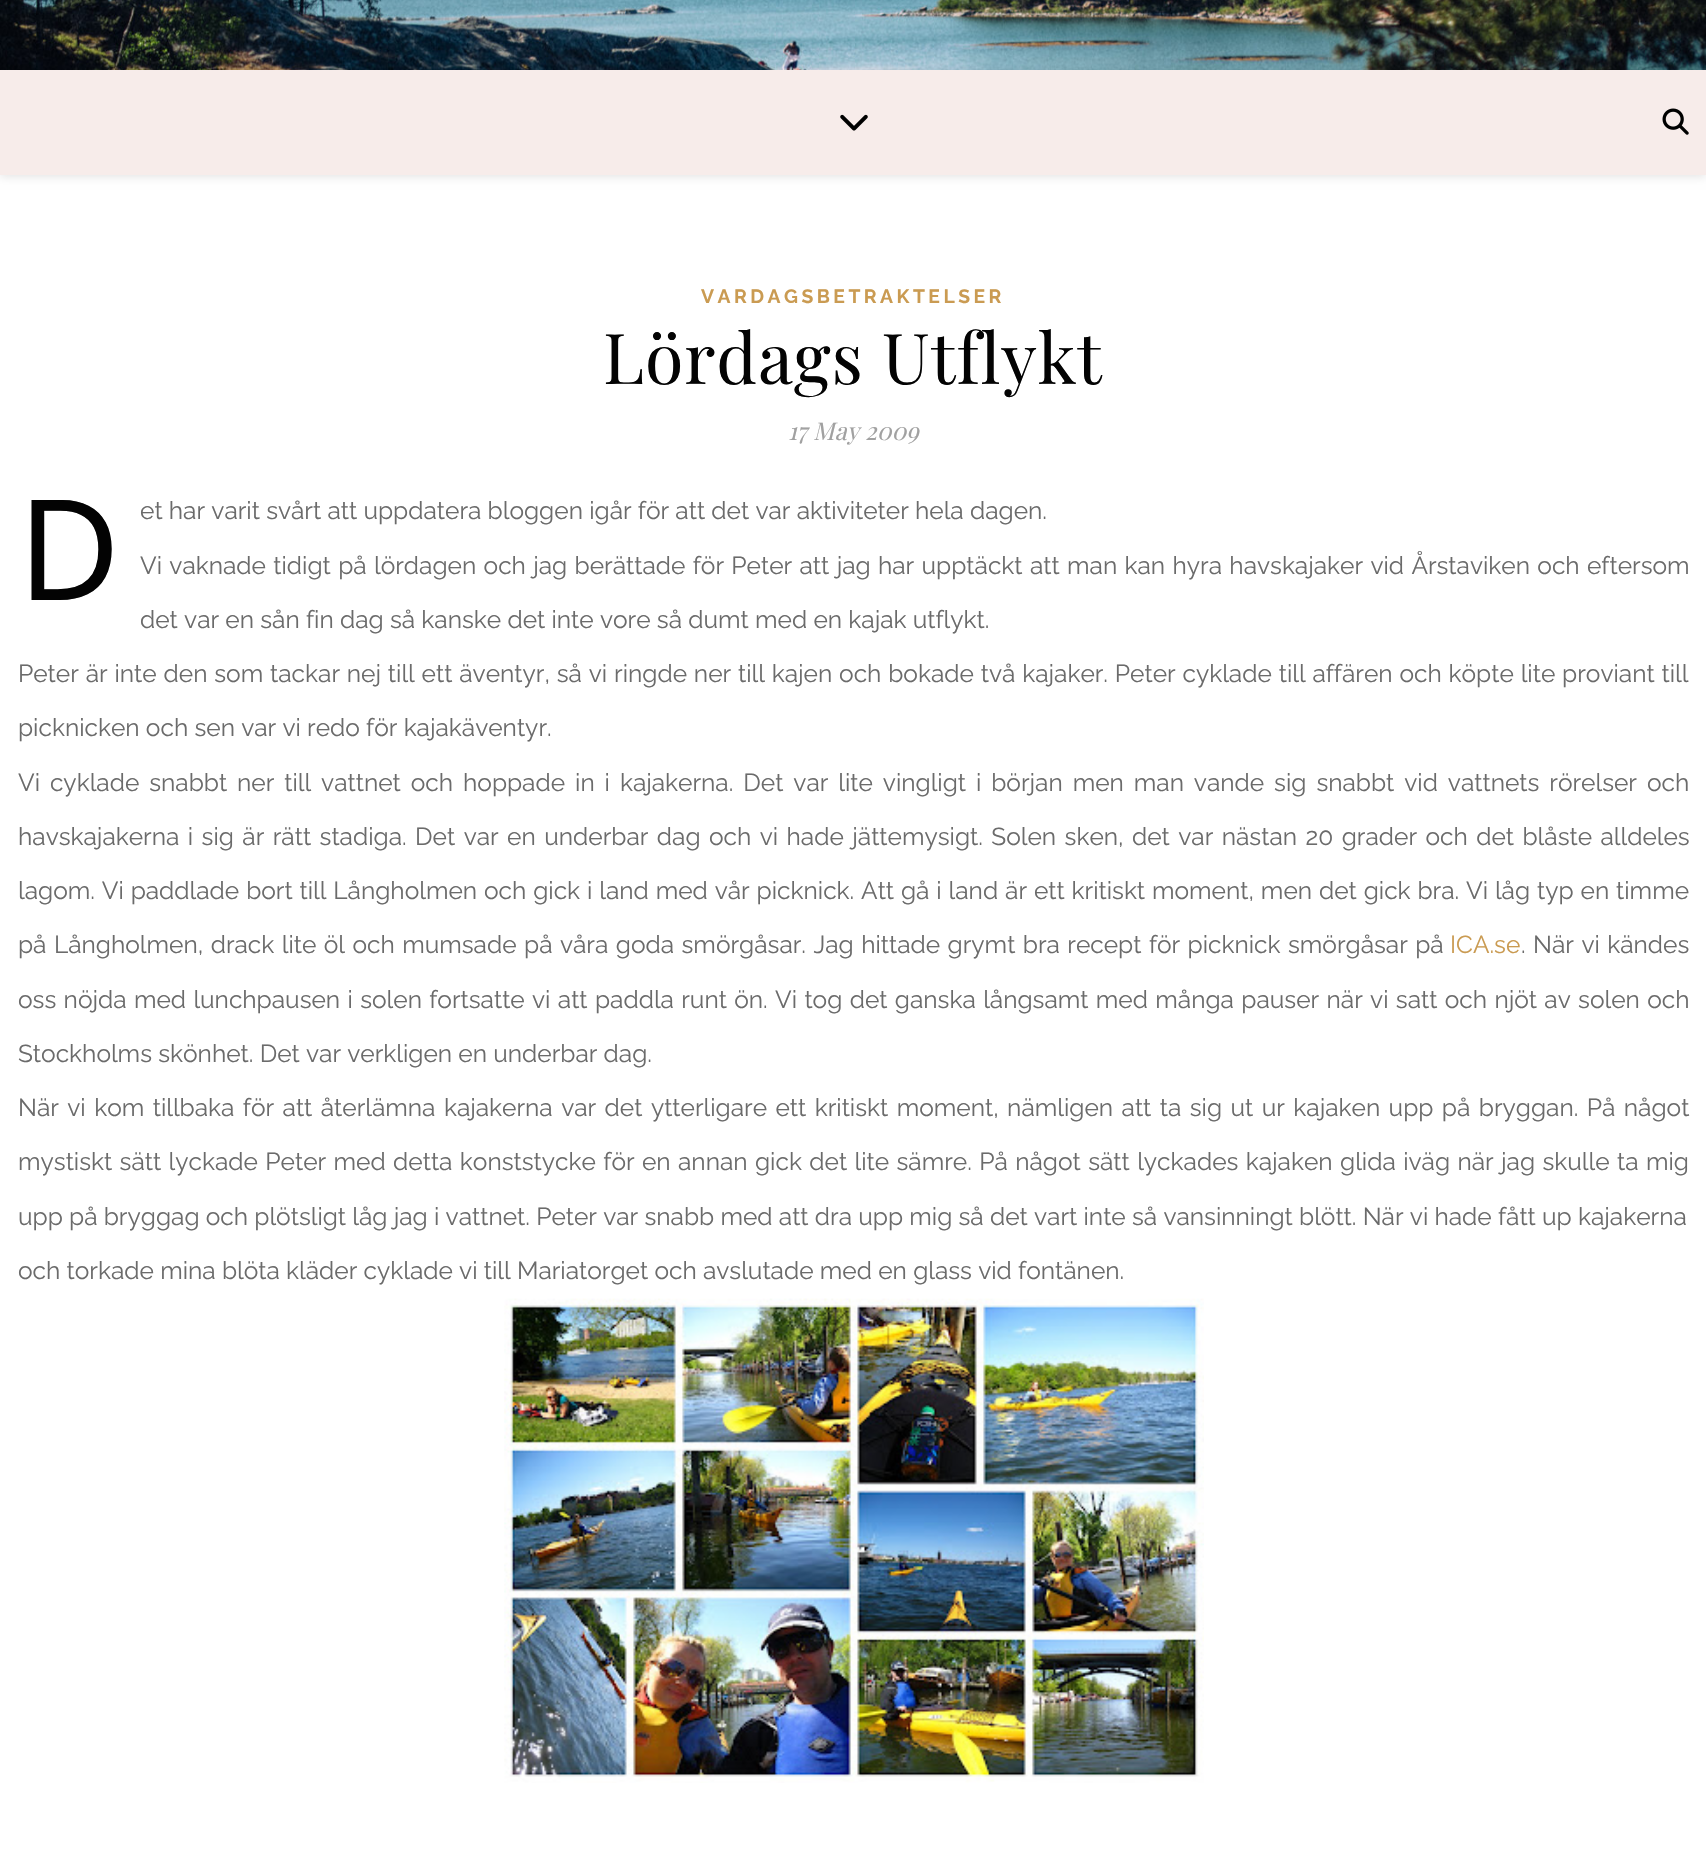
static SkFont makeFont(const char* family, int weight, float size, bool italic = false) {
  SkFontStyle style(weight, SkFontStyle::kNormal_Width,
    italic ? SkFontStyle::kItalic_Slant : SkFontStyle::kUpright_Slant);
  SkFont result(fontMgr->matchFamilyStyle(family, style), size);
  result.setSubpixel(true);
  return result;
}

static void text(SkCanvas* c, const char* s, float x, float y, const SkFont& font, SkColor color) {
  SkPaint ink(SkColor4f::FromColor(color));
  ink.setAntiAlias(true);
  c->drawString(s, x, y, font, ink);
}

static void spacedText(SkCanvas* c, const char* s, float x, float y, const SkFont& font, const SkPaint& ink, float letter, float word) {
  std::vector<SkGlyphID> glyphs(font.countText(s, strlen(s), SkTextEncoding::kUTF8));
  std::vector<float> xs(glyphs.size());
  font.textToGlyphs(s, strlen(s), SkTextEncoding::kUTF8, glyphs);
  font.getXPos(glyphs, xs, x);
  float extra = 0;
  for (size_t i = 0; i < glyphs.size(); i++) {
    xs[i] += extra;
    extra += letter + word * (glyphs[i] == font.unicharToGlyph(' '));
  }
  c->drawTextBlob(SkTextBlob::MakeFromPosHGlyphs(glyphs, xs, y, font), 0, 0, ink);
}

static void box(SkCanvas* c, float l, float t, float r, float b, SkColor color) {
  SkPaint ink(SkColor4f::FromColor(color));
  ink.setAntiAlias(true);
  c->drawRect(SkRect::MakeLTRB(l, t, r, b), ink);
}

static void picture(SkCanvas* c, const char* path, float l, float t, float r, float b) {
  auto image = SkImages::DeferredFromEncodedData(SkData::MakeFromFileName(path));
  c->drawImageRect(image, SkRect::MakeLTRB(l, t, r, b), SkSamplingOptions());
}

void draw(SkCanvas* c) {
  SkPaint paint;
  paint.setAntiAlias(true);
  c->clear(0xffffffff);
  picture(c, "img_01.png", 0, 0, 1706, 70);
  paint.setColor(0x1a000000);
  paint.setMaskFilter(SkMaskFilter::MakeBlur(kNormal_SkBlurStyle, 4.5f));
  c->drawRect(SkRect::MakeLTRB(0, 72, 1706, 177), paint);
  paint.setMaskFilter(nullptr);
  box(c, 0, 70, 1706, 175, 0xfff7ecea);
  picture(c, "img_02.png", 840, 114, 868, 131);
  picture(c, "img_03.png", 1662, 108, 1689, 135);
  SkFont face1 = makeFont("Raleway", 700, 19.25f);
  paint.setColor(0xffca9b52);
  spacedText(c, "VARDAGSBETRAKTELSER", 701, 303, face1, paint, 3.5f, 0);
  SkFont face2 = makeFont("Playfair Display", 400, 70);
  paint.setColor(0xff030303);
  spacedText(c, "Lördags Utflykt", 603, 384, face2, paint, 0.9f, 0);
  SkFont face3 = makeFont("Playfair Display", 400, 24.5f, true);
  text(c, "17 May 2009", 788, 440, face3, 0xffa1a1a1);
  SkFont face4 = makeFont("Noto Sans", 400, 140);
  text(c, "D", 18, 600, face4, 0xff030303);
  SkFont face5 = makeFont("Raleway", 400, 24.5f);
  text(c, "et har varit svårt att uppdatera bloggen igår för att det var aktiviteter hela dagen.", 140, 519, face5, 0xff6b6b6b);
  paint.setColor(0xff6b6b6b);
  spacedText(c, "Vi vaknade tidigt på lördagen och jag berättade för Peter att jag har upptäckt att man kan hyra havskajaker vid Årstaviken och eftersom", 140, 574, face5, paint, 0, 1.1f);
  text(c, "det var en sån fin dag så kanske det inte vore så dumt med en kajak utflykt.", 140, 628, face5, 0xff6b6b6b);
  spacedText(c, "Peter är inte den som tackar nej till ett äventyr, så vi ringde ner till kajen och bokade två kajaker. Peter cyklade till affären och köpte lite proviant till", 18, 682, face5, paint, 0, 0.6f);
  text(c, "picknicken och sen var vi redo för kajakäventyr.", 18, 736, face5, 0xff6b6b6b);
  spacedText(c, "Vi cyklade snabbt ner till vattnet och hoppade in i kajakerna. Det var lite vingligt i början men man vande sig snabbt vid vattnets rörelser och", 18, 791, face5, paint, 0, 3.7f);
  spacedText(c, "havskajakerna i sig är rätt stadiga. Det var en underbar dag och vi hade jättemysigt. Solen sken, det var nästan 20 grader och det blåste alldeles", 18, 845, face5, paint, 0, 2.2f);
  spacedText(c, "lagom. Vi paddlade bort till Långholmen och gick i land med vår picknick. Att gå i land är ett kritiskt moment, men det gick bra. Vi låg typ en timme", 18, 899, face5, paint, 0, 0.65f);
  spacedText(c, "på Långholmen, drack lite öl och mumsade på våra goda smörgåsar. Jag hittade grymt bra recept för picknick smörgåsar på", 18, 953, face5, paint, 0, 1.2f);
  text(c, "ICA.se", 1450, 953, face5, 0xffca9b52);
  spacedText(c, ". När vi kändes", 1521, 953, face5, paint, 0, 1.2f);
  spacedText(c, "oss nöjda med lunchpausen i solen fortsatte vi att paddla runt ön. Vi tog det ganska långsamt med många pauser när vi satt och njöt av solen och", 18, 1008, face5, paint, 0, 1.1f);
  text(c, "Stockholms skönhet. Det var verkligen en underbar dag.", 18, 1062, face5, 0xff6b6b6b);
  spacedText(c, "När vi kom tillbaka för att återlämna kajakerna var det ytterligare ett kritiskt moment, nämligen att ta sig ut ur kajaken upp på bryggan. På något", 18, 1116, face5, paint, 0, 2.2f);
  spacedText(c, "mystiskt sätt lyckade Peter med detta konststycke för en annan gick det lite sämre. På något sätt lyckades kajaken glida iväg när jag skulle ta mig", 18, 1170, face5, paint, 0, 1.15f);
  text(c, "upp på bryggag och plötsligt låg jag i vattnet. Peter var snabb med att dra upp mig så det vart inte så vansinningt blött. När vi hade fått up kajakerna", 18, 1225, face5, 0xff6b6b6b);
  text(c, "och torkade mina blöta kläder cyklade vi till Mariatorget och avslutade med en glass vid fontänen.", 18, 1279, face5, 0xff6b6b6b);
  picture(c, "img_04.png", 504, 1298, 1204, 1783);
}
